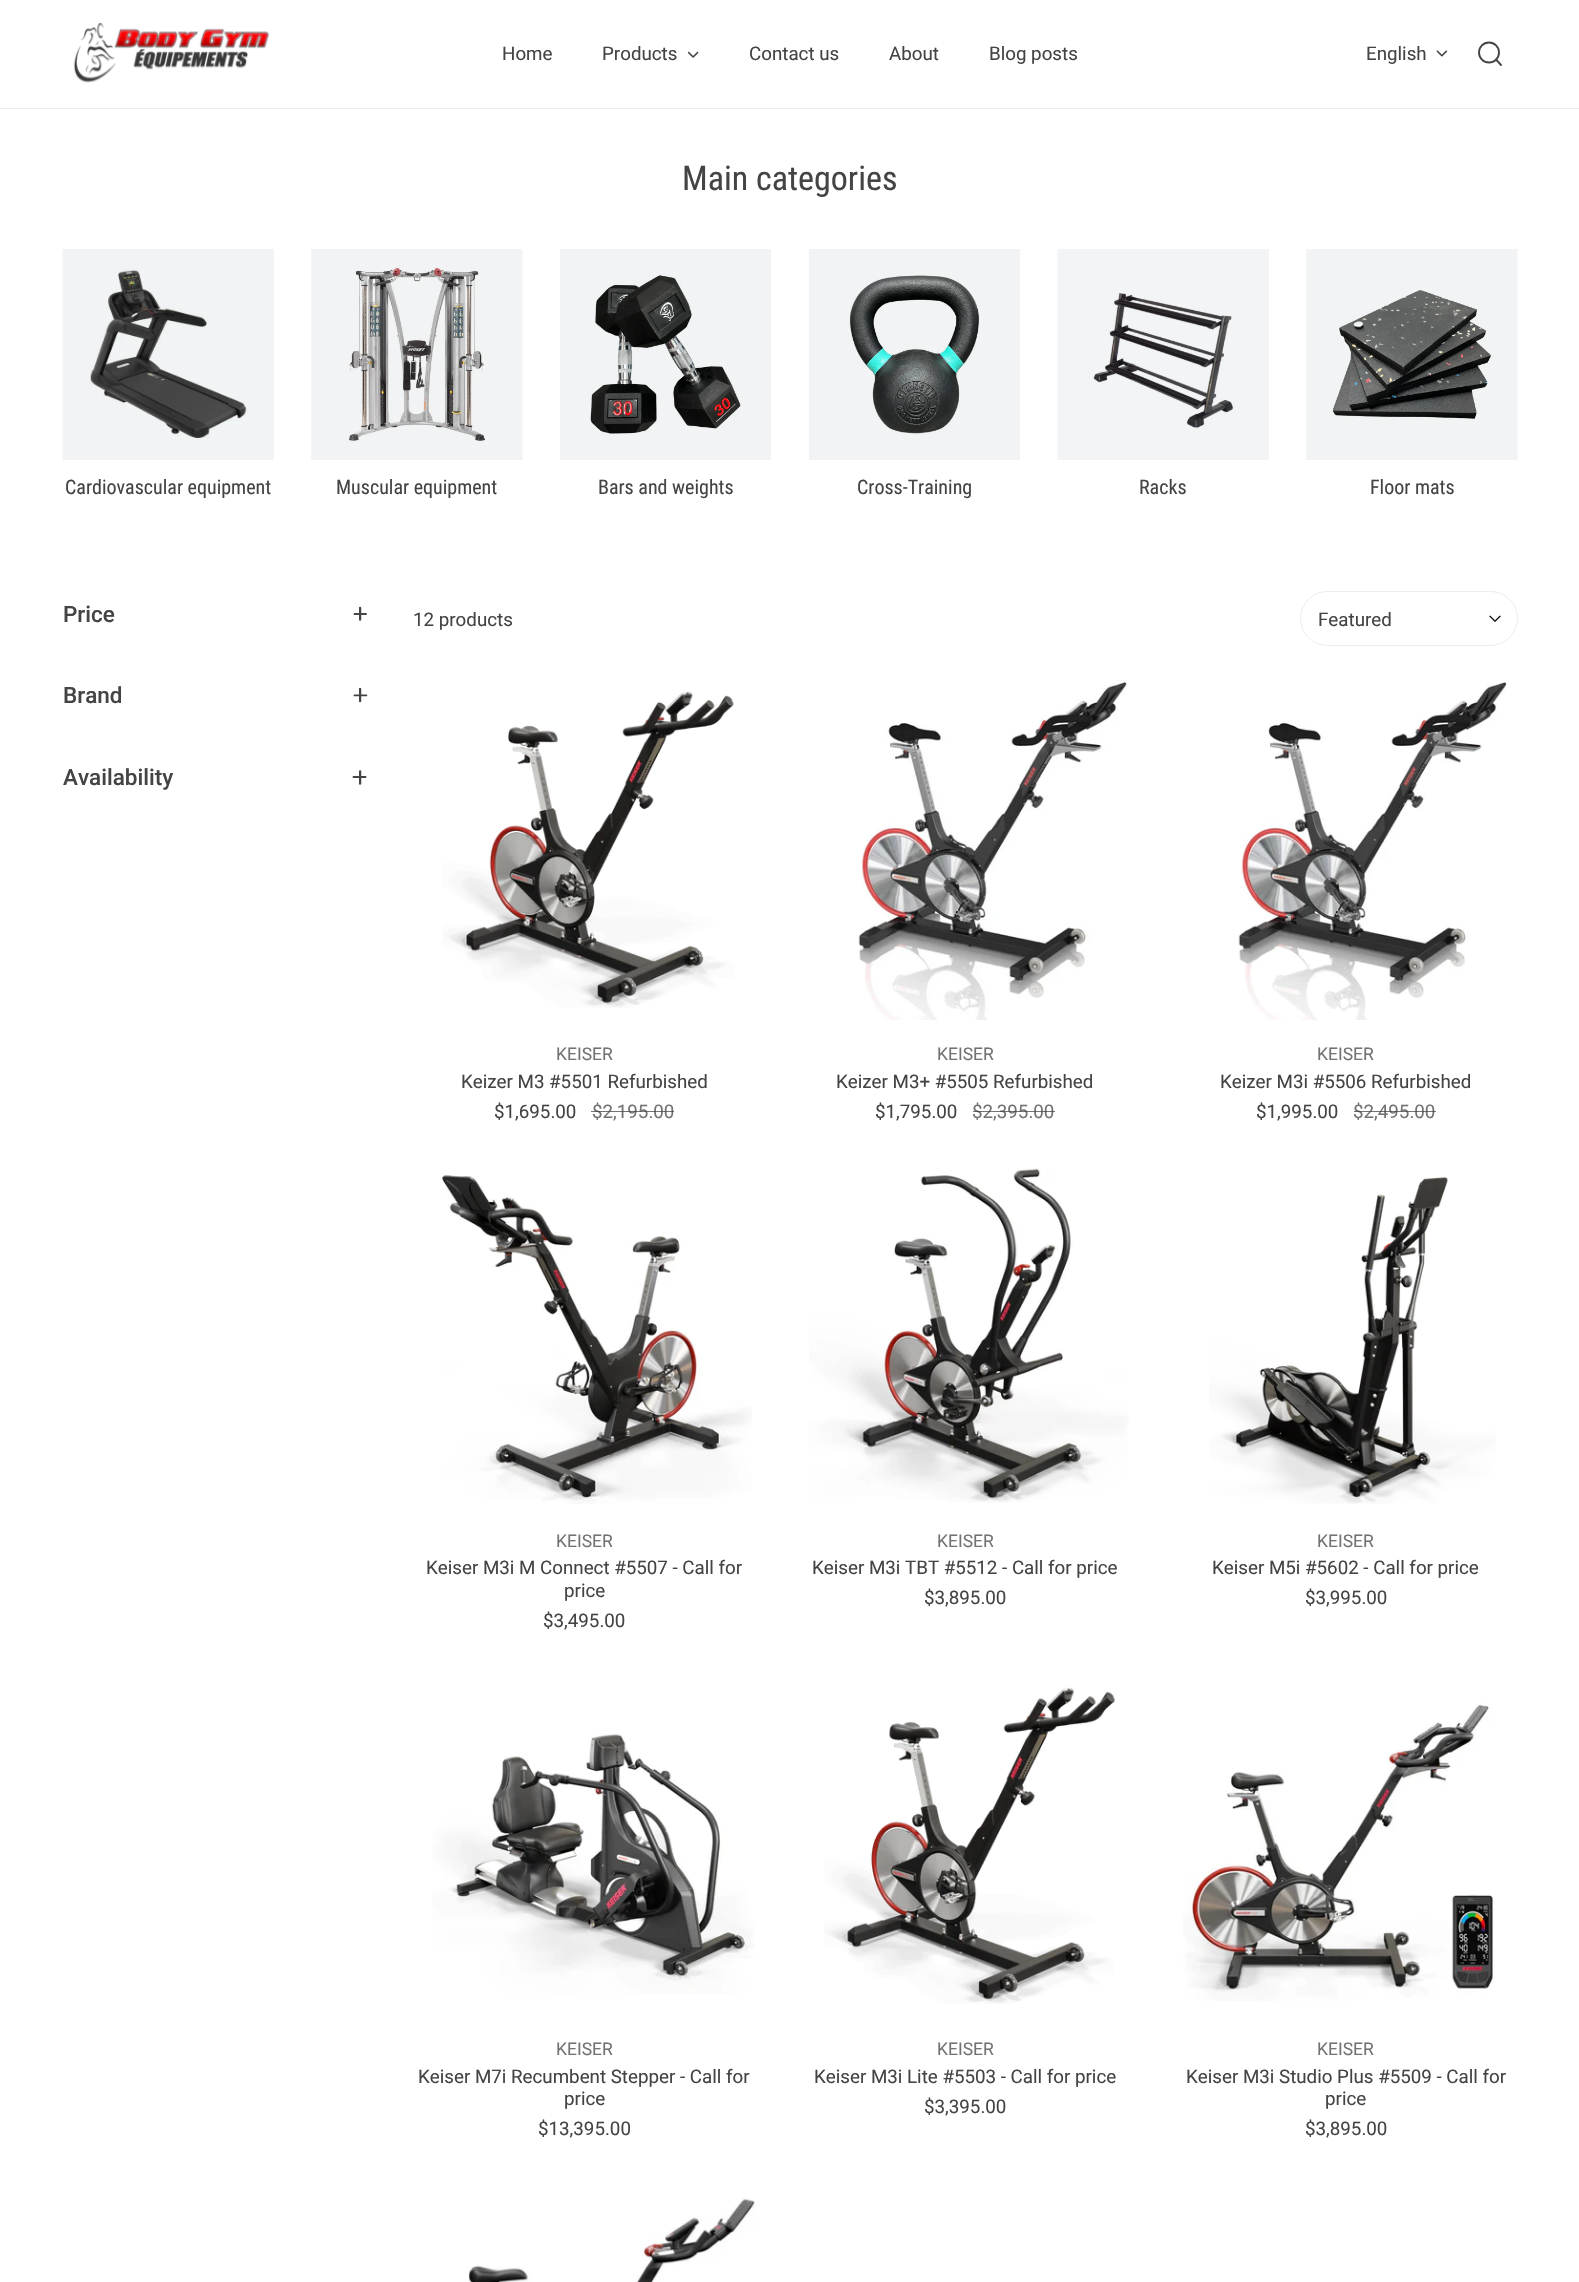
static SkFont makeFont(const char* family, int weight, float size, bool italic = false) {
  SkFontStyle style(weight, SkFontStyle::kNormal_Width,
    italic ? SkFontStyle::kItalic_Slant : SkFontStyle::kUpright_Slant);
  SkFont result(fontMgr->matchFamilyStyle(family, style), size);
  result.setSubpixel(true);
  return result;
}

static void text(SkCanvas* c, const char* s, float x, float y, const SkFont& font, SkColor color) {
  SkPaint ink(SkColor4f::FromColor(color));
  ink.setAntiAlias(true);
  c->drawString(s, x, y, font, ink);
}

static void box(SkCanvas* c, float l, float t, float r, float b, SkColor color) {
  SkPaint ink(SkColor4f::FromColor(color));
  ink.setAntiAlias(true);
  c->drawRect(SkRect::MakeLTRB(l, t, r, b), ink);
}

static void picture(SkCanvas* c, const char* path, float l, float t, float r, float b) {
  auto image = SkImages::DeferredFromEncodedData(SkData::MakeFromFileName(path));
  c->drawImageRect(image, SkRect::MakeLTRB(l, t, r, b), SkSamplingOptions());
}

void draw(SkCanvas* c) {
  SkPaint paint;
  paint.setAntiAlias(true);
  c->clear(0xffffffff);
  box(c, 0, 108, 1579, 109, 0xffededed);
  picture(c, "img_01.png", 73, 22, 269, 83);
  SkFont face1 = makeFont("Roboto", 400, 18.75f);
  text(c, "Home", 502, 60, face1, 0xff444444);
  text(c, "Products", 602, 60, face1, 0xff444444);
  picture(c, "img_02.png", 688, 51, 699, 58);
  text(c, "Contact us", 749, 60, face1, 0xff444444);
  text(c, "About", 889, 60, face1, 0xff444444);
  text(c, "Blog posts", 989, 60, face1, 0xff444444);
  text(c, "English", 1366, 60, face1, 0xff444444);
  picture(c, "img_03.png", 1436, 50, 1448, 57);
  paint.setStyle(SkPaint::kStroke_Style);
  paint.setStrokeWidth(1.9f);
  paint.setColor(0xff444444);
  c->drawCircle(1489, 52.5f, 10, paint);
  paint.setStrokeCap(SkPaint::kRound_Cap);
  paint.setStrokeJoin(SkPaint::kRound_Join);
  c->drawPath(SkPathBuilder().moveTo(1501, 65).lineTo(1496, 59.5f).detach(), paint);
  SkFont face2 = makeFont("Roboto Condensed", 400, 34);
  text(c, "Main categories", 682, 190, face2, 0xff444444);
  picture(c, "img_04.png", 62, 249, 274, 460);
  SkFont face3 = makeFont("Roboto Condensed", 400, 20);
  text(c, "Cardiovascular equipment", 65, 494, face3, 0xff444444);
  picture(c, "img_05.png", 311, 249, 523, 460);
  text(c, "Muscular equipment", 336, 494, face3, 0xff444444);
  picture(c, "img_06.png", 560, 249, 771, 460);
  text(c, "Bars and weights", 598, 494, face3, 0xff444444);
  picture(c, "img_07.png", 809, 249, 1020, 460);
  text(c, "Cross-Training", 857, 494, face3, 0xff444444);
  picture(c, "img_08.png", 1057, 249, 1269, 460);
  text(c, "Racks", 1139, 494, face3, 0xff444444);
  picture(c, "img_09.png", 1306, 249, 1518, 460);
  text(c, "Floor mats", 1370, 494, face3, 0xff444444);
  SkFont face4 = makeFont("Roboto", 500, 22.5f);
  text(c, "Price", 63, 622, face4, 0xff444444);
  c->save();
  c->clipRect(SkRect::MakeLTRB(359, 606, 362, 621));
  paint.setStrokeWidth(2.5f);
  c->drawPath(SkPathBuilder().moveTo(360, 608).lineTo(360, 619.5f).detach(), paint);
  c->restore();
  paint.setStrokeWidth(1.9f);
  c->drawPath(SkPathBuilder().moveTo(366, 614).lineTo(354.5f, 614).detach(), paint);
  text(c, "Brand", 63, 703, face4, 0xff444444);
  c->save();
  c->clipRect(SkRect::MakeLTRB(359, 688, 362, 703));
  paint.setStrokeWidth(2.5f);
  c->drawPath(SkPathBuilder().moveTo(360, 689).lineTo(360, 701).detach(), paint);
  c->restore();
  c->save();
  c->clipPath(SkPathBuilder().moveTo(367.5f, 694).lineTo(367.5f, 696.5f).lineTo(352.5f, 696.5f).lineTo(352.5f, 694).close().detach(), true);
  paint.setStrokeWidth(1.9f);
  c->drawPath(SkPathBuilder().moveTo(366.5f, 695.5f).lineTo(354.5f, 695.5f).detach(), paint);
  c->restore();
  text(c, "Availability", 63, 785, face4, 0xff444444);
  c->save();
  c->clipRect(SkRect::MakeLTRB(359, 770, 362, 785));
  paint.setStrokeWidth(2.5f);
  c->drawPath(SkPathBuilder().moveTo(360, 771.5f).lineTo(360, 783.5f).detach(), paint);
  c->restore();
  paint.setStrokeWidth(1.9f);
  c->drawPath(SkPathBuilder().moveTo(365.5f, 777).lineTo(353.5f, 777).detach(), paint);
  text(c, "12 products", 413, 626, face1, 0xff444444);
  picture(c, "img_10.png", 1489, 615, 1501, 622);
  paint.setStrokeWidth(1);
  paint.setStrokeCap(SkPaint::kButt_Cap);
  paint.setStrokeJoin(SkPaint::kMiter_Join);
  paint.setColor(0xffededed);
  c->drawRoundRect(SkRect::MakeLTRB(1300.5f, 591.5f, 1517.5f, 645.5f), 27, 27, paint);
  text(c, "Featured", 1318, 626, face1, 0xff444444);
  picture(c, "img_11.png", 442, 691, 734, 1008);
  SkFont face5 = makeFont("Roboto", 400, 17.5f);
  text(c, "KEISER", 556, 1060, face5, 0xff737373);
  text(c, "Keizer M3 #5501 Refurbished", 461, 1088, face1, 0xff444444);
  text(c, "$1,695.00", 494, 1118, face1, 0xff444444);
  text(c, "$2,195.00", 592, 1118, face1, 0xff737373);
  box(c, 591, 1111, 674, 1112, 0xbf444444);
  picture(c, "img_12.png", 858, 680, 1127, 1020);
  text(c, "KEISER", 937, 1060, face5, 0xff737373);
  text(c, "Keizer M3+ #5505 Refurbished", 836, 1088, face1, 0xff444444);
  text(c, "$1,795.00", 875, 1118, face1, 0xff444444);
  text(c, "$2,395.00", 972, 1118, face1, 0xff737373);
  box(c, 973, 1111, 1055, 1112, 0xbf444444);
  picture(c, "img_13.png", 1238, 682, 1507, 1020);
  text(c, "KEISER", 1317, 1060, face5, 0xff737373);
  text(c, "Keizer M3i #5506 Refurbished", 1220, 1088, face1, 0xff444444);
  text(c, "$1,995.00", 1256, 1118, face1, 0xff444444);
  text(c, "$2,495.00", 1353, 1118, face1, 0xff737373);
  box(c, 1354, 1111, 1436, 1112, 0xbf444444);
  picture(c, "img_14.png", 440, 1175, 752, 1504);
  text(c, "KEISER", 556, 1547, face5, 0xff737373);
  text(c, "Keiser M3i M Connect #5507 - Call for", 426, 1574, face1, 0xff444444);
  text(c, "price", 564, 1597, face1, 0xff444444);
  text(c, "$3,495.00", 543, 1627, face1, 0xff444444);
  picture(c, "img_15.png", 809, 1168, 1129, 1503);
  text(c, "KEISER", 937, 1547, face5, 0xff737373);
  text(c, "Keiser M3i TBT #5512 - Call for price", 812, 1574, face1, 0xff444444);
  text(c, "$3,895.00", 924, 1604, face1, 0xff444444);
  picture(c, "img_16.png", 1209, 1177, 1496, 1504);
  text(c, "KEISER", 1317, 1547, face5, 0xff737373);
  text(c, "Keiser M5i #5602 - Call for price", 1212, 1574, face1, 0xff444444);
  text(c, "$3,995.00", 1305, 1604, face1, 0xff444444);
  picture(c, "img_17.png", 432, 1733, 755, 1994);
  text(c, "KEISER", 556, 2055, face5, 0xff737373);
  text(c, "Keiser M7i Recumbent Stepper - Call for", 418, 2083, face1, 0xff444444);
  text(c, "price", 564, 2105, face1, 0xff444444);
  text(c, "$13,395.00", 538, 2135, face1, 0xff444444);
  picture(c, "img_18.png", 824, 1687, 1115, 2004);
  text(c, "KEISER", 937, 2055, face5, 0xff737373);
  text(c, "Keiser M3i Lite #5503 - Call for price", 814, 2083, face1, 0xff444444);
  text(c, "$3,395.00", 924, 2113, face1, 0xff444444);
  picture(c, "img_19.png", 1183, 1703, 1495, 2001);
  text(c, "KEISER", 1317, 2055, face5, 0xff737373);
  text(c, "Keiser M3i Studio Plus #5509 - Call for", 1186, 2083, face1, 0xff444444);
  text(c, "price", 1325, 2105, face1, 0xff444444);
  text(c, "$3,895.00", 1305, 2135, face1, 0xff444444);
  picture(c, "img_20.png", 468, 2198, 755, 2282);
}
